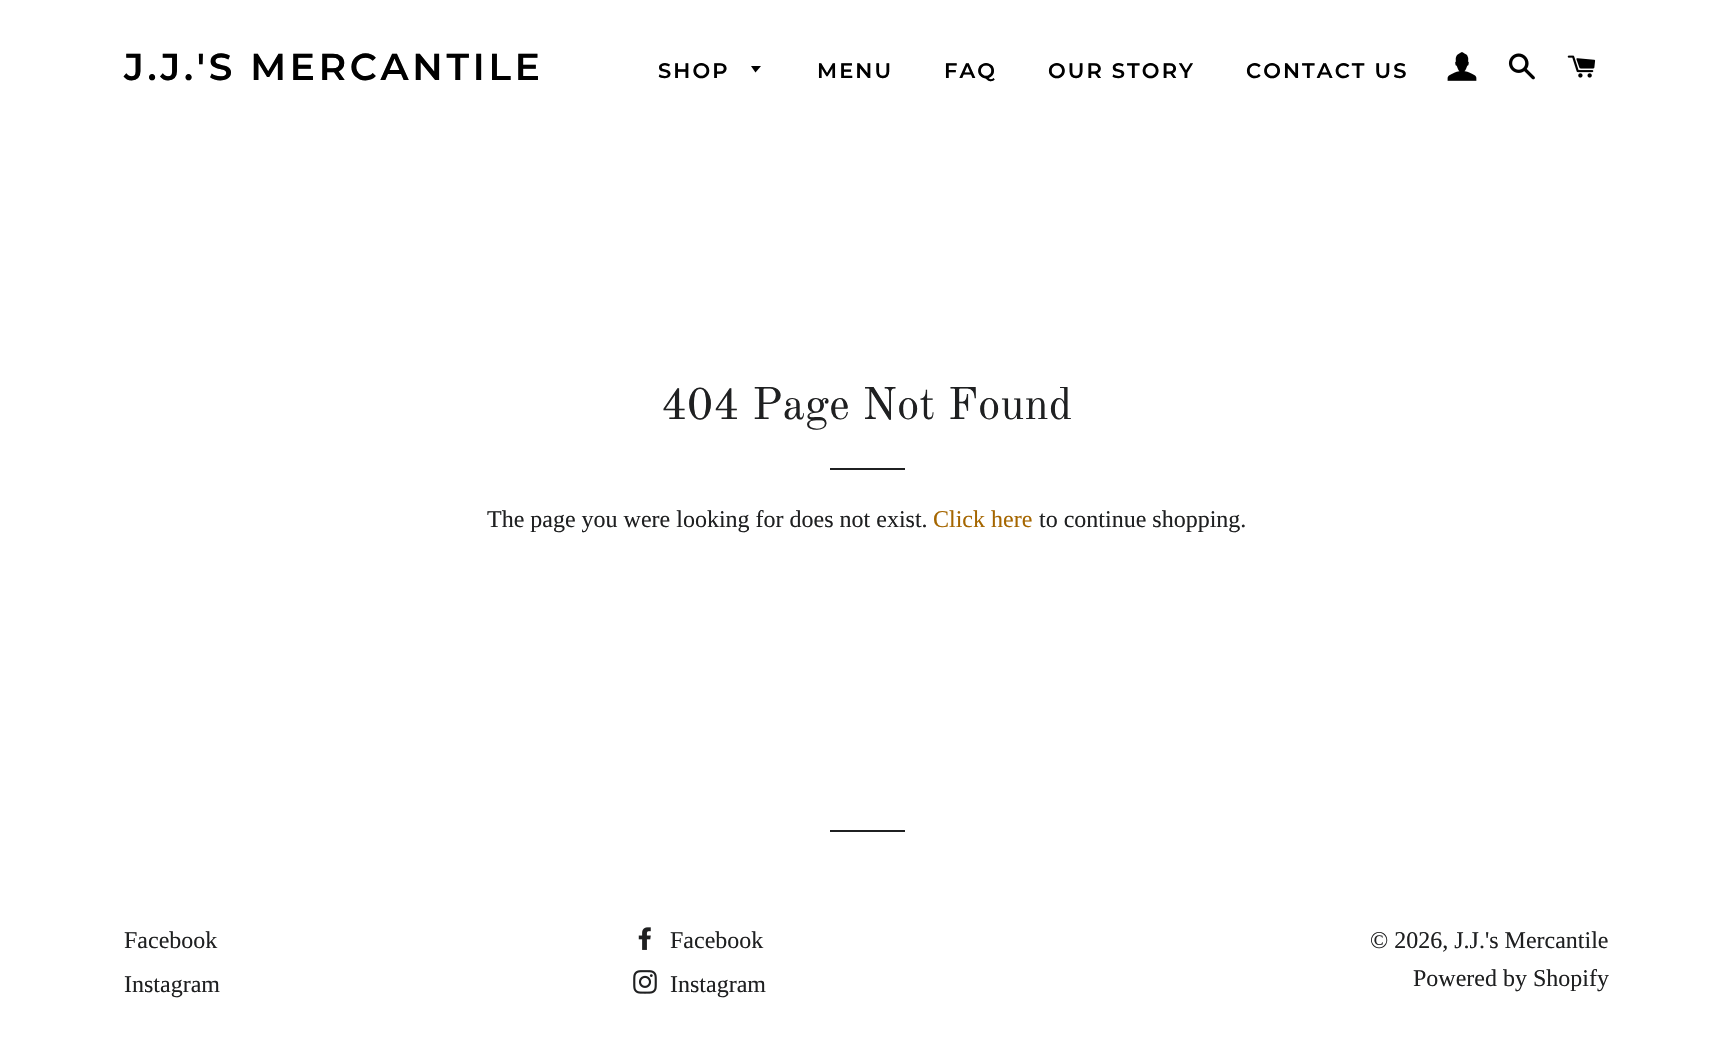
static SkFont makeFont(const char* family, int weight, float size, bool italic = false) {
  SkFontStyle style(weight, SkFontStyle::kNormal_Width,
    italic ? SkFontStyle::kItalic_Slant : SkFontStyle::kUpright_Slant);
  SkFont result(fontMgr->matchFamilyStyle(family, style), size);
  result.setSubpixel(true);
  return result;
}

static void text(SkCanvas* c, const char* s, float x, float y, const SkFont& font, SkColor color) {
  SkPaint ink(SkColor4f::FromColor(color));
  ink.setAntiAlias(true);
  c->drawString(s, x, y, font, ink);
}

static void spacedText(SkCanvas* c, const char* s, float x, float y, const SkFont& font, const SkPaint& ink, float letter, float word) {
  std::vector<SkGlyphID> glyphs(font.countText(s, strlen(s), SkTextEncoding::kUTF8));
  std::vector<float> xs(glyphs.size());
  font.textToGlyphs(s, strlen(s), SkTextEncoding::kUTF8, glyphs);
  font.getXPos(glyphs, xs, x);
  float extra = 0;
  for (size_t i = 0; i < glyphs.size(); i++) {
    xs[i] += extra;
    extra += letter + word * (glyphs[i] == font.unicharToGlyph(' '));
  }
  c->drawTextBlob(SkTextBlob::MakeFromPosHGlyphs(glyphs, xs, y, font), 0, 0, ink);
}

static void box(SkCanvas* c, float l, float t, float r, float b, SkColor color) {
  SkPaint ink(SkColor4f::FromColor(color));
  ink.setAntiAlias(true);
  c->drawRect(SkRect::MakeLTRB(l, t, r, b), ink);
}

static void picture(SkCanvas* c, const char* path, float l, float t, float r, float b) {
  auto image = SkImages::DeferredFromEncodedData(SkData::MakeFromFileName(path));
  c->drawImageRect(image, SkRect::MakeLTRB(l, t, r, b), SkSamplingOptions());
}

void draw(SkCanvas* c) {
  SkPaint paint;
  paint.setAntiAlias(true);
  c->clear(0xffffffff);
  SkFont face1 = makeFont("Montserrat", 600, 37.5f);
  paint.setColor(0xff000000);
  spacedText(c, "J.J.'S MERCANTILE", 124, 80, face1, paint, 3.75f, 0);
  SkFont face2 = makeFont("Montserrat", 600, 21);
  spacedText(c, "SHOP", 658, 78, face2, paint, 2.1f, 0);
  c->drawPath(SkPathBuilder().moveTo(751, 66).lineTo(755.5f, 72.5f).lineTo(761, 66).close().detach(), paint);
  spacedText(c, "MENU", 817, 78, face2, paint, 2.1f, 0);
  spacedText(c, "FAQ", 944, 78, face2, paint, 2.1f, 0);
  spacedText(c, "OUR STORY", 1048, 78, face2, paint, 2.1f, 0);
  spacedText(c, "CONTACT US", 1246, 78, face2, paint, 2.1f, 0);
  picture(c, "img_01.png", 1447, 52, 1477, 81);
  picture(c, "img_02.png", 1508, 53, 1535, 80);
  picture(c, "img_03.png", 1567, 55, 1596, 78);
  SkFont face3 = makeFont("Old Standard TT", 400, 45);
  text(c, "404 Page Not Found", 661, 419, face3, 0xff1f2021);
  box(c, 830, 468, 905, 470, 0xff1f2021);
  SkFont face4 = makeFont("Liberation Serif", 400, 24);
  text(c, "The page you were looking for does not exist.", 487, 527, face4, 0xff1f2021);
  text(c, "Click here", 933, 527, face4, 0xffa56600);
  text(c, "to continue shopping.", 1039, 527, face4, 0xff1f2021);
  box(c, 830, 830, 905, 832, 0xff1f2021);
  text(c, "Facebook", 124, 948, face4, 0xff1f2021);
  text(c, "Instagram", 124, 992, face4, 0xff1f2021);
  picture(c, "img_04.png", 638, 927, 651, 950);
  text(c, "Facebook", 670, 948, face4, 0xff1f2021);
  picture(c, "img_05.png", 633, 970, 657, 994);
  text(c, "Instagram", 670, 992, face4, 0xff1f2021);
  text(c, "© 2026, J.J.'s Mercantile", 1370, 948, face4, 0xff1f2021);
  text(c, "Powered by Shopify", 1413, 986, face4, 0xff1f2021);
}
